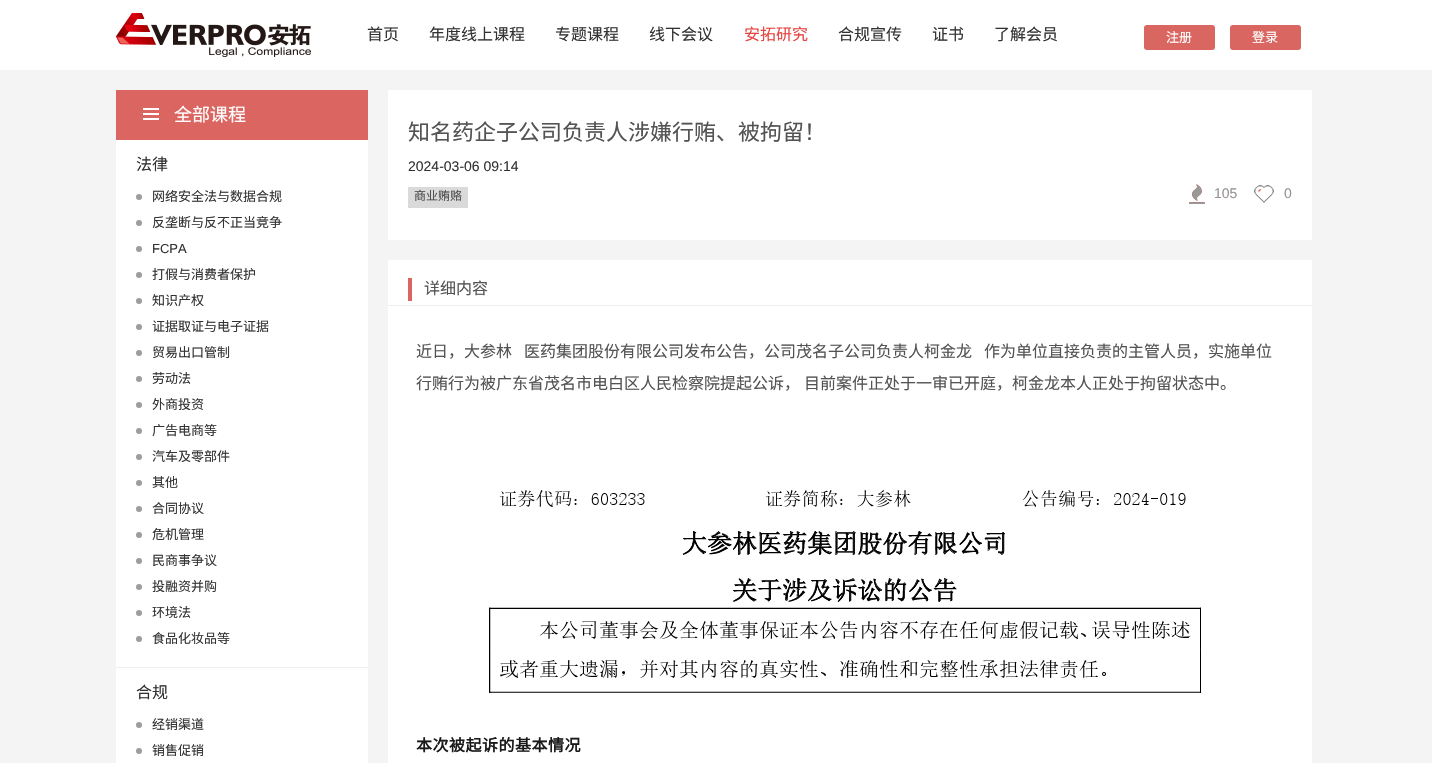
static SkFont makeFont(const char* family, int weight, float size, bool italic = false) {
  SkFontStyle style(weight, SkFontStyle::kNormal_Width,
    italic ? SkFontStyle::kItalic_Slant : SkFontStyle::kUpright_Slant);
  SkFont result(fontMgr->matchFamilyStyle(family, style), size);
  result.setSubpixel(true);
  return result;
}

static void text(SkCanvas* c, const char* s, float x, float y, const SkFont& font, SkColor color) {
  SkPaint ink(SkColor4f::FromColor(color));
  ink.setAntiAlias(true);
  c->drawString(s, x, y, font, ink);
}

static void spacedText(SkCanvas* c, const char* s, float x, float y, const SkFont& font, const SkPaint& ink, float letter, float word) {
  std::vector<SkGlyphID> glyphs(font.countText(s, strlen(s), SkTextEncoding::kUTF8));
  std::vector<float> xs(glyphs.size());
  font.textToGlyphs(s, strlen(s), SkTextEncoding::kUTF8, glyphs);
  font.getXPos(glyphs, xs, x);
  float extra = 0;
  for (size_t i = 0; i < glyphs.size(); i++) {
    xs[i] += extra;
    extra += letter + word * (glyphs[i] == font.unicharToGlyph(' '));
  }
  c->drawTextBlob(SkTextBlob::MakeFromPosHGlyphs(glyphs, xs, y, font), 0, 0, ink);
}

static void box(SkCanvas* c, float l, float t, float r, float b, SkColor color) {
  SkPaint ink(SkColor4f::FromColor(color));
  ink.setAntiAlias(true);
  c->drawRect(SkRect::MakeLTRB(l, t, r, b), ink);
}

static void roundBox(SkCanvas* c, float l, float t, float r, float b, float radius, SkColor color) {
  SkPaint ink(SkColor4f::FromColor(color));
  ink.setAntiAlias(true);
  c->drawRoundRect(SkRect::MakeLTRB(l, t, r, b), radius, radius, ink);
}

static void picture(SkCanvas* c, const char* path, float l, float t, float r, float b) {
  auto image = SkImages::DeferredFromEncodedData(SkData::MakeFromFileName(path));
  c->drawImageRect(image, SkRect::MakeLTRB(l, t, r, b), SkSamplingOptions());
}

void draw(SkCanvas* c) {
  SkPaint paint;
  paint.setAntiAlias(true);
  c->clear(0xfff4f4f4);
  box(c, 0, 0, 1432, 70, 0xffffffff);
  picture(c, "img_01.png", 116, 13, 311, 57);
  SkFont face1 = makeFont("Noto Sans CJK SC", 400, 16);
  text(c, "首页", 367, 40, face1, 0xff333333);
  text(c, "年度线上课程", 429, 40, face1, 0xff333333);
  text(c, "专题课程", 555, 40, face1, 0xff333333);
  text(c, "线下会议", 649, 40, face1, 0xff333333);
  text(c, "安拓研究", 744, 40, face1, 0xffe5453f);
  text(c, "合规宣传", 838, 40, face1, 0xff333333);
  text(c, "证书", 932, 40, face1, 0xff333333);
  text(c, "了解会员", 994, 40, face1, 0xff333333);
  roundBox(c, 1144, 25, 1215, 50, 3, 0xffda6661);
  SkFont face2 = makeFont("Noto Sans CJK SC", 400, 13);
  text(c, "注册", 1166, 42, face2, 0xffffffff);
  roundBox(c, 1230, 25, 1301, 50, 3, 0xffda6661);
  text(c, "登录", 1252, 42, face2, 0xffffffff);
  box(c, 116, 140, 368, 763, 0xffffffff);
  box(c, 116, 90, 368, 140, 0xffda6561);
  picture(c, "img_02.png", 143, 108, 159, 120);
  SkFont face3 = makeFont("Noto Sans CJK SC", 400, 18);
  text(c, "全部课程", 174, 121, face3, 0xffffffff);
  box(c, 116, 667, 368, 668, 0xffeeeeee);
  text(c, "法律", 136, 170, face1, 0xff333333);
  paint.setColor(0xff9d9d9d);
  c->drawCircle(139, 197, 3, paint);
  text(c, "网络安全法与数据合规", 152, 201, face2, 0xff333333);
  c->drawCircle(139, 223, 3, paint);
  text(c, "反垄断与反不正当竞争", 152, 227, face2, 0xff333333);
  c->drawCircle(139, 249, 3, paint);
  SkFont face4 = makeFont("Liberation Sans", 400, 13);
  text(c, "FCPA", 152, 253, face4, 0xff333333);
  c->drawCircle(139, 275, 3, paint);
  text(c, "打假与消费者保护", 152, 279, face2, 0xff333333);
  c->drawCircle(139, 301, 3, paint);
  text(c, "知识产权", 152, 305, face2, 0xff333333);
  c->drawCircle(139, 327, 3, paint);
  text(c, "证据取证与电子证据", 152, 331, face2, 0xff333333);
  c->drawCircle(139, 353, 3, paint);
  text(c, "贸易出口管制", 152, 357, face2, 0xff333333);
  c->drawCircle(139, 379, 3, paint);
  text(c, "劳动法", 152, 383, face2, 0xff333333);
  c->drawCircle(139, 405, 3, paint);
  text(c, "外商投资", 152, 409, face2, 0xff333333);
  c->drawCircle(139, 431, 3, paint);
  text(c, "广告电商等", 152, 435, face2, 0xff333333);
  c->drawCircle(139, 457, 3, paint);
  text(c, "汽车及零部件", 152, 461, face2, 0xff333333);
  c->drawCircle(139, 483, 3, paint);
  text(c, "其他", 152, 487, face2, 0xff333333);
  c->drawCircle(139, 509, 3, paint);
  text(c, "合同协议", 152, 513, face2, 0xff333333);
  c->drawCircle(139, 535, 3, paint);
  text(c, "危机管理", 152, 539, face2, 0xff333333);
  c->drawCircle(139, 561, 3, paint);
  text(c, "民商事争议", 152, 565, face2, 0xff333333);
  c->drawCircle(139, 587, 3, paint);
  text(c, "投融资并购", 152, 591, face2, 0xff333333);
  c->drawCircle(139, 613, 3, paint);
  text(c, "环境法", 152, 617, face2, 0xff333333);
  c->drawCircle(139, 639, 3, paint);
  text(c, "食品化妆品等", 152, 643, face2, 0xff333333);
  text(c, "合规", 136, 698, face1, 0xff333333);
  c->drawCircle(139, 725, 3, paint);
  text(c, "经销渠道", 152, 729, face2, 0xff333333);
  c->drawCircle(139, 751, 3, paint);
  text(c, "销售促销", 152, 755, face2, 0xff333333);
  box(c, 388, 90, 1312, 240, 0xffffffff);
  SkFont face5 = makeFont("Noto Sans CJK SC", 400, 22);
  text(c, "知名药企子公司负责人涉嫌行贿、被拘留！", 408, 140, face5, 0xff535353);
  SkFont face6 = makeFont("Liberation Sans", 400, 14);
  text(c, "2024-03-06 09:14", 408, 171, face6, 0xff333333);
  box(c, 408, 187, 468, 208, 0xffdbdada);
  SkFont face7 = makeFont("Noto Sans CJK SC", 400, 12);
  text(c, "商业贿赂", 414, 200, face7, 0xff4b4b4b);
  picture(c, "img_03.png", 1189, 184, 1205, 204);
  text(c, "105", 1214, 198, face6, 0xff979393);
  picture(c, "img_04.png", 1254, 185, 1274, 203);
  text(c, "0", 1284, 198, face6, 0xff979393);
  box(c, 388, 260, 1312, 763, 0xffffffff);
  box(c, 388, 305, 1312, 306, 0xffeeeeee);
  box(c, 408, 278, 412, 301, 0xffda6561);
  text(c, "详细内容", 424, 294, face1, 0xff535353);
  text(c, "近日，大参林", 416, 357, face1, 0xff535353);
  text(c, "医药集团股份有限公司发布公告，公司茂名子公司负责人柯金龙", 524, 357, face1, 0xff535353);
  text(c, "作为单位直接负责的主管人员，实施单位", 984, 357, face1, 0xff535353);
  text(c, "行贿行为被广东省茂名市电白区人民检察院提起公诉，", 416, 389, face1, 0xff535353);
  text(c, "目前案件正处于一审已开庭，柯金龙本人正处于拘留状态中。", 804, 389, face1, 0xff535353);
  picture(c, "img_05.png", 489, 490, 1201, 693);
  SkFont face8 = makeFont("Noto Sans CJK SC", 700, 16);
  paint.setColor(0xff1a1a1a);
  spacedText(c, "本次被起诉的基本情况", 416, 751, face8, paint, 0.5f, 0);
}
